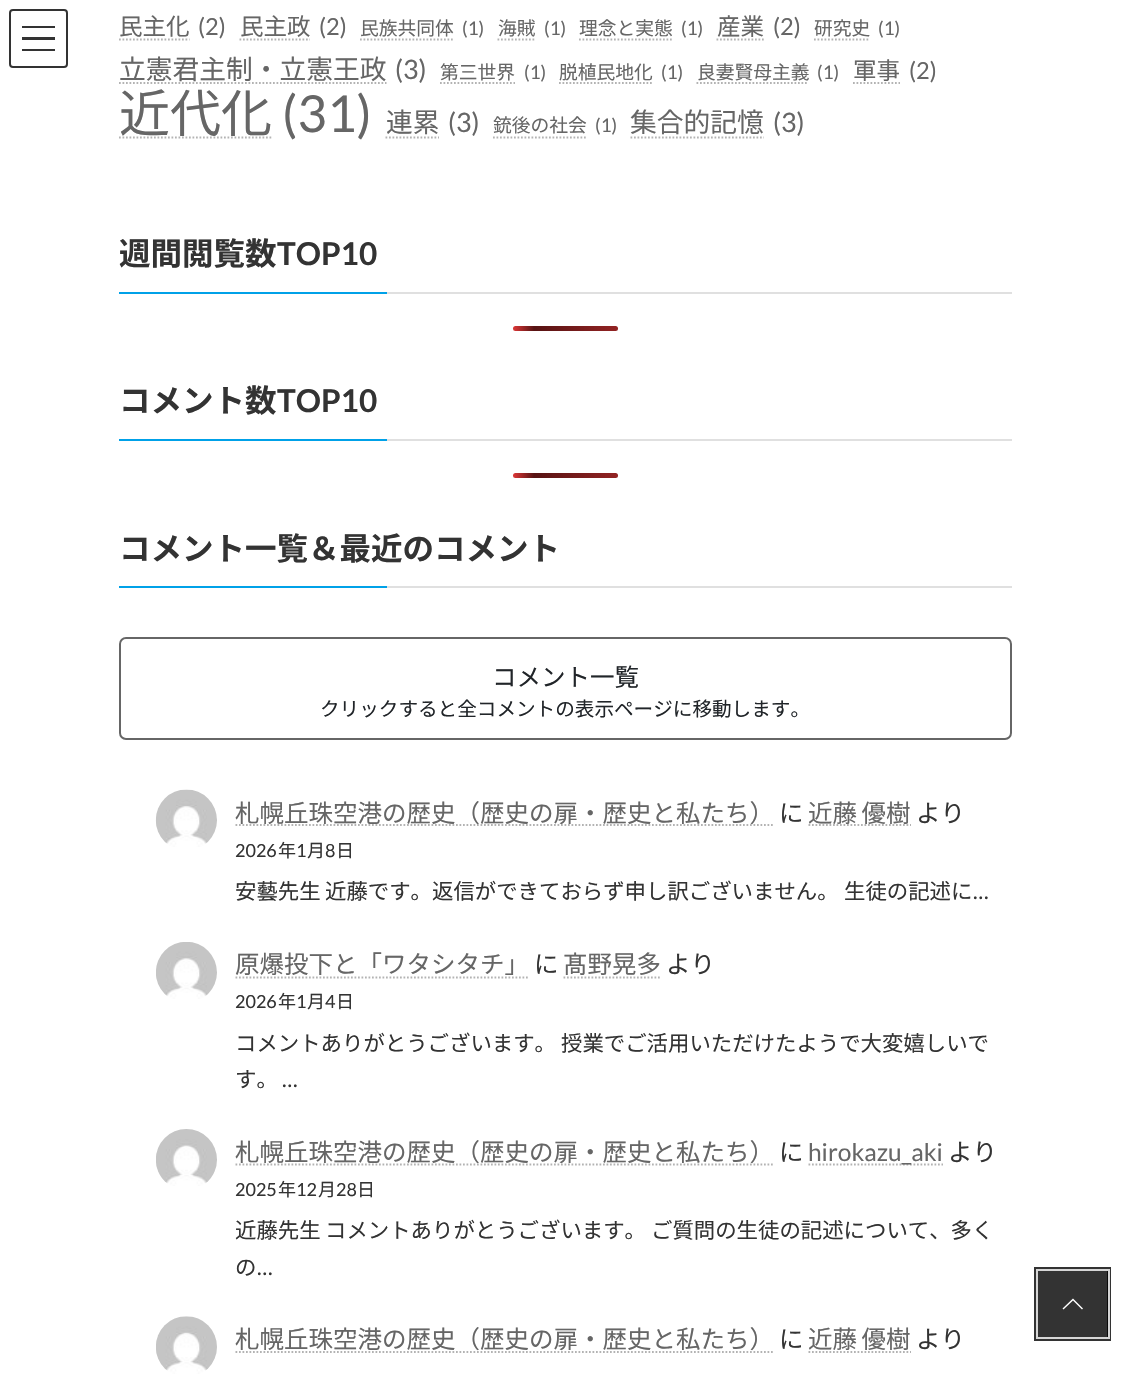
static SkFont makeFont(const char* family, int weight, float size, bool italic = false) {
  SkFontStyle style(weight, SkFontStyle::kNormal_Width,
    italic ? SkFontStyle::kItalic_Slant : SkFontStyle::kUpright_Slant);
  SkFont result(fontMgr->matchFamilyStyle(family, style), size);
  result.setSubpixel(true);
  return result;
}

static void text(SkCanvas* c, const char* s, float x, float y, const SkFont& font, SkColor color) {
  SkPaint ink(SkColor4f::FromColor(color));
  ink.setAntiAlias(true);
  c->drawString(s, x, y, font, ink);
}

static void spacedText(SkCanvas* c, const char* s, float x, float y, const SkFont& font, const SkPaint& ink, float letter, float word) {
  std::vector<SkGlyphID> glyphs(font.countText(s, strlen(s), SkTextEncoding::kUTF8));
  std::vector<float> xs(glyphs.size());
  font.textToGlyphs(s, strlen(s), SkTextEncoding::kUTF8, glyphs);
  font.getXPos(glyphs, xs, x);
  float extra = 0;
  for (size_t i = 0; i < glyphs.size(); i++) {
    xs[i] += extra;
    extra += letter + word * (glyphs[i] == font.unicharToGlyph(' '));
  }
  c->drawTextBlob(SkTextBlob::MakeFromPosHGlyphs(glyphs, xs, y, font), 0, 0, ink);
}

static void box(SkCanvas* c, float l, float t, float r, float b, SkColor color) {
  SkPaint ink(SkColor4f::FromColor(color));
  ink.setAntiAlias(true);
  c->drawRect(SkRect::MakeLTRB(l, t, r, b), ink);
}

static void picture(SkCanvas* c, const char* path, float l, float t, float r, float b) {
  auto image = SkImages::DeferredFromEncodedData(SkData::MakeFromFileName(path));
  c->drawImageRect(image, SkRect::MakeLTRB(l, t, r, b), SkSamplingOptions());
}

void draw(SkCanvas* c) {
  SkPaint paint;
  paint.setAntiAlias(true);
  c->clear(0xffffffff);
  box(c, 22, 26, 55, 28, 0xff333333);
  box(c, 22, 37, 55, 40, 0xff333333);
  box(c, 22, 49, 55, 51, 0xff333333);
  paint.setStyle(SkPaint::kStroke_Style);
  paint.setStrokeWidth(2);
  paint.setColor(0xff333333);
  c->drawRoundRect(SkRect::MakeLTRB(10, 10, 67, 67), 3, 3, paint);
  SkFont face1 = makeFont("Noto Sans JP", 400, 23.5f);
  text(c, "民主化", 119, 35, face1, 0xff666666);
  paint.setStrokeWidth(1.8f);
  paint.setColor(0xffb3b3b3);
  paint.setPathEffect(SkDashPathEffect::Make({{1.75f, 1.75f}}, 0));
  c->drawPath(SkPathBuilder().moveTo(119, 39.5f).lineTo(189.5f, 39.5f).detach(), paint);
  paint.setPathEffect(nullptr);
  SkFont face2 = makeFont("Lato", 400, 23.5f);
  text(c, "(2)", 198, 35, face2, 0xff666666);
  text(c, "民主政", 240, 35, face1, 0xff666666);
  paint.setPathEffect(SkDashPathEffect::Make({{1.75f, 1.75f}}, 0));
  c->drawPath(SkPathBuilder().moveTo(239.5f, 39.5f).lineTo(310, 39.5f).detach(), paint);
  paint.setPathEffect(nullptr);
  text(c, "(2)", 319, 35, face2, 0xff666666);
  SkFont face3 = makeFont("Noto Sans JP", 400, 18.75f);
  text(c, "民族共同体", 360, 35, face3, 0xff666666);
  paint.setPathEffect(SkDashPathEffect::Make({{1.75f, 1.75f}}, 0));
  c->drawPath(SkPathBuilder().moveTo(360, 39.5f).lineTo(453.5f, 39.5f).detach(), paint);
  paint.setPathEffect(nullptr);
  SkFont face4 = makeFont("Lato", 400, 18.75f);
  text(c, "(1)", 462, 35, face4, 0xff666666);
  text(c, "海賊", 498, 35, face3, 0xff666666);
  paint.setPathEffect(SkDashPathEffect::Make({{1.75f, 1.75f}}, 0));
  c->drawPath(SkPathBuilder().moveTo(497.5f, 39.5f).lineTo(535, 39.5f).detach(), paint);
  paint.setPathEffect(nullptr);
  text(c, "(1)", 544, 35, face4, 0xff666666);
  text(c, "理念と実態", 579, 35, face3, 0xff666666);
  paint.setPathEffect(SkDashPathEffect::Make({{1.75f, 1.75f}}, 0));
  c->drawPath(SkPathBuilder().moveTo(579, 39.5f).lineTo(672.5f, 39.5f).detach(), paint);
  paint.setPathEffect(nullptr);
  text(c, "(1)", 681, 35, face4, 0xff666666);
  text(c, "産業", 717, 35, face1, 0xff666666);
  paint.setPathEffect(SkDashPathEffect::Make({{1.75f, 1.75f}}, 0));
  c->drawPath(SkPathBuilder().moveTo(716.5f, 39.5f).lineTo(764, 39.5f).detach(), paint);
  paint.setPathEffect(nullptr);
  text(c, "(2)", 773, 35, face2, 0xff666666);
  text(c, "研究史", 814, 35, face3, 0xff666666);
  paint.setPathEffect(SkDashPathEffect::Make({{1.75f, 1.75f}}, 0));
  c->drawPath(SkPathBuilder().moveTo(814, 39.5f).lineTo(869.5f, 39.5f).detach(), paint);
  paint.setPathEffect(nullptr);
  text(c, "(1)", 878, 35, face4, 0xff666666);
  SkFont face5 = makeFont("Noto Sans JP", 400, 26.75f);
  text(c, "立憲君主制・立憲王政", 119, 79, face5, 0xff666666);
  paint.setPathEffect(SkDashPathEffect::Make({{1.75f, 1.75f}}, 0));
  c->drawPath(SkPathBuilder().moveTo(119, 83).lineTo(386.5f, 83).detach(), paint);
  paint.setPathEffect(nullptr);
  SkFont face6 = makeFont("Lato", 400, 26.75f);
  text(c, "(3)", 395, 79, face6, 0xff666666);
  text(c, "第三世界", 440, 79, face3, 0xff666666);
  paint.setPathEffect(SkDashPathEffect::Make({{1.75f, 1.75f}}, 0));
  c->drawPath(SkPathBuilder().moveTo(440, 83).lineTo(515, 83).detach(), paint);
  paint.setPathEffect(nullptr);
  text(c, "(1)", 524, 79, face4, 0xff666666);
  text(c, "脱植民地化", 559, 79, face3, 0xff666666);
  paint.setPathEffect(SkDashPathEffect::Make({{1.75f, 1.75f}}, 0));
  c->drawPath(SkPathBuilder().moveTo(559, 83).lineTo(652.5f, 83).detach(), paint);
  paint.setPathEffect(nullptr);
  text(c, "(1)", 661, 79, face4, 0xff666666);
  text(c, "良妻賢母主義", 697, 79, face3, 0xff666666);
  paint.setPathEffect(SkDashPathEffect::Make({{1.75f, 1.75f}}, 0));
  c->drawPath(SkPathBuilder().moveTo(696.5f, 83).lineTo(808.5f, 83).detach(), paint);
  paint.setPathEffect(nullptr);
  text(c, "(1)", 817, 79, face4, 0xff666666);
  text(c, "軍事", 853, 79, face1, 0xff666666);
  paint.setPathEffect(SkDashPathEffect::Make({{1.75f, 1.75f}}, 0));
  c->drawPath(SkPathBuilder().moveTo(853, 83).lineTo(900, 83).detach(), paint);
  paint.setPathEffect(nullptr);
  text(c, "(2)", 909, 79, face2, 0xff666666);
  paint.setPathEffect(SkDashPathEffect::Make({{1.75f, 1.75f}}, 0));
  c->drawPath(SkPathBuilder().moveTo(119, 137.5f).lineTo(273, 137.5f).detach(), paint);
  paint.setPathEffect(nullptr);
  SkFont face7 = makeFont("Noto Sans JP", 400, 51);
  text(c, "近代化", 119, 132, face7, 0xff666666);
  SkFont face8 = makeFont("Lato", 400, 51);
  text(c, "(31)", 282, 132, face8, 0xff666666);
  text(c, "連累", 386, 132, face5, 0xff666666);
  paint.setPathEffect(SkDashPathEffect::Make({{1.75f, 1.75f}}, 0));
  c->drawPath(SkPathBuilder().moveTo(385.5f, 137.5f).lineTo(439, 137.5f).detach(), paint);
  paint.setPathEffect(nullptr);
  text(c, "(3)", 448, 132, face6, 0xff666666);
  text(c, "銃後の社会", 493, 132, face3, 0xff666666);
  paint.setPathEffect(SkDashPathEffect::Make({{1.75f, 1.75f}}, 0));
  c->drawPath(SkPathBuilder().moveTo(493, 137.5f).lineTo(586, 137.5f).detach(), paint);
  paint.setPathEffect(nullptr);
  text(c, "(1)", 595, 132, face4, 0xff666666);
  text(c, "集合的記憶", 630, 132, face5, 0xff666666);
  paint.setPathEffect(SkDashPathEffect::Make({{1.75f, 1.75f}}, 0));
  c->drawPath(SkPathBuilder().moveTo(630.5f, 137.5f).lineTo(764, 137.5f).detach(), paint);
  paint.setPathEffect(nullptr);
  text(c, "(3)", 773, 132, face6, 0xff666666);
  box(c, 387, 292, 1012, 294, 0xffe0e0e0);
  SkFont face9 = makeFont("Noto Sans JP", 700, 31.5f);
  text(c, "週間閲覧数", 119, 265, face9, 0xff333333);
  SkFont face10 = makeFont("Lato", 700, 31.5f);
  text(c, "TOP10", 277, 265, face10, 0xff333333);
  box(c, 119, 292, 387, 294, 0xff00a1e8);
  paint.setStyle(SkPaint::kFill_Style);
  {
    const SkColor colors[] = {0xffdd3737, 0xff571313, 0xffdd3737};
    const float stops[] = {0, 0.1f, 1};
    const SkPoint ends[] = {{513, 328}, {723, 328}};
    paint.setShader(SkGradientShader::MakeLinear(ends, colors, stops, 3, SkTileMode::kClamp));
    paint.setAlpha(255);
  }
  c->drawRoundRect(SkRect::MakeLTRB(513, 326, 618, 331), 2.5f, 2.5f, paint);
  box(c, 387, 439, 1012, 441, 0xffe0e0e0);
  text(c, "コメント数", 119, 412, face9, 0xff333333);
  text(c, "TOP10", 277, 412, face10, 0xff333333);
  box(c, 119, 439, 387, 441, 0xff00a1e8);
  {
    const SkColor colors[] = {0xffdd3737, 0xff571313, 0xffdd3737};
    const float stops[] = {0, 0.1f, 1};
    const SkPoint ends[] = {{513, 475}, {723, 475}};
    paint.setShader(SkGradientShader::MakeLinear(ends, colors, stops, 3, SkTileMode::kClamp));
    paint.setAlpha(255);
  }
  c->drawRoundRect(SkRect::MakeLTRB(513, 473, 618, 478), 2.5f, 2.5f, paint);
  box(c, 387, 586, 1012, 588, 0xffe0e0e0);
  text(c, "コメント一覧＆最近のコメント", 119, 560, face9, 0xff333333);
  box(c, 119, 586, 387, 588, 0xff00a1e8);
  paint.setStyle(SkPaint::kStroke_Style);
  paint.setStrokeWidth(2);
  paint.setShader(nullptr);
  paint.setColor(0xff666666);
  c->drawRoundRect(SkRect::MakeLTRB(120, 638, 1011, 739), 6, 6, paint);
  SkFont face11 = makeFont("Noto Sans JP", 400, 24.5f);
  text(c, "コメント一覧", 492, 686, face11, 0xff212529);
  SkFont face12 = makeFont("Noto Sans JP", 400, 19.6f);
  text(c, "クリックすると全コメントの表示ページに移動します。", 320, 716, face12, 0xff212529);
  picture(c, "img_01.png", 155, 789, 217, 847);
  paint.setStrokeWidth(1.8f);
  paint.setColor(0xffb3b3b3);
  paint.setPathEffect(SkDashPathEffect::Make({{1.75f, 1.75f}}, 0));
  c->drawPath(SkPathBuilder().moveTo(235.5f, 825).lineTo(774.5f, 825).detach(), paint);
  paint.setPathEffect(nullptr);
  text(c, "札幌丘珠空港の歴史（歴史の扉・歴史と私たち）", 235, 822, face11, 0xff666666);
  text(c, "に", 779, 822, face11, 0xff333333);
  paint.setPathEffect(SkDashPathEffect::Make({{1.75f, 1.75f}}, 0));
  c->drawPath(SkPathBuilder().moveTo(808.5f, 825).lineTo(911, 825).detach(), paint);
  paint.setPathEffect(nullptr);
  paint.setStyle(SkPaint::kFill_Style);
  paint.setColor(0xff666666);
  spacedText(c, "近藤 優樹", 808, 822, face11, paint, 0, -1);
  text(c, "より", 916, 822, face11, 0xff333333);
  SkFont face13 = makeFont("Lato", 400, 18);
  text(c, "2026", 235, 857, face13, 0xff333333);
  SkFont face14 = makeFont("Noto Sans JP", 400, 18);
  text(c, "年", 278, 857, face14, 0xff333333);
  text(c, "1", 296, 857, face13, 0xff333333);
  text(c, "月", 307, 857, face14, 0xff333333);
  text(c, "8", 325, 857, face13, 0xff333333);
  text(c, "日", 336, 857, face14, 0xff333333);
  SkFont face15 = makeFont("Noto Sans JP", 400, 21.4f);
  text(c, "安藝先生", 235, 899, face15, 0xff333333);
  text(c, "近藤です。返信ができておらず申し訳ございません。", 325, 899, face15, 0xff333333);
  text(c, "生徒の記述に", 844, 899, face15, 0xff333333);
  SkFont face16 = makeFont("Lato", 400, 21.4f);
  text(c, "…", 973, 899, face16, 0xff333333);
  picture(c, "img_02.png", 156, 942, 217, 999);
  text(c, "原爆投下と「ワタシタチ」", 235, 973, face11, 0xff666666);
  paint.setStyle(SkPaint::kStroke_Style);
  paint.setColor(0xffb3b3b3);
  paint.setPathEffect(SkDashPathEffect::Make({{1.75f, 1.75f}}, 0));
  c->drawPath(SkPathBuilder().moveTo(235.5f, 977.5f).lineTo(529.5f, 977.5f).detach(), paint);
  paint.setPathEffect(nullptr);
  text(c, "に", 534, 973, face11, 0xff333333);
  text(c, "髙野晃多", 563, 973, face11, 0xff666666);
  paint.setPathEffect(SkDashPathEffect::Make({{1.75f, 1.75f}}, 0));
  c->drawPath(SkPathBuilder().moveTo(563.5f, 977.5f).lineTo(661.5f, 977.5f).detach(), paint);
  paint.setPathEffect(nullptr);
  text(c, "より", 666, 973, face11, 0xff333333);
  text(c, "2026", 235, 1008, face13, 0xff333333);
  text(c, "年", 278, 1008, face14, 0xff333333);
  text(c, "1", 296, 1008, face13, 0xff333333);
  text(c, "月", 307, 1008, face14, 0xff333333);
  text(c, "4", 325, 1008, face13, 0xff333333);
  text(c, "日", 336, 1008, face14, 0xff333333);
  text(c, "コメントありがとうございます。", 235, 1051, face15, 0xff333333);
  text(c, "授業でご活用いただけたようで大変嬉しいで", 561, 1051, face15, 0xff333333);
  text(c, "す。", 235, 1087, face15, 0xff333333);
  text(c, "…", 282, 1087, face16, 0xff333333);
  picture(c, "img_03.png", 156, 1129, 217, 1186);
  paint.setPathEffect(SkDashPathEffect::Make({{1.75f, 1.75f}}, 0));
  c->drawPath(SkPathBuilder().moveTo(235.5f, 1164.5f).lineTo(774.5f, 1164.5f).detach(), paint);
  paint.setPathEffect(nullptr);
  text(c, "札幌丘珠空港の歴史（歴史の扉・歴史と私たち）", 235, 1161, face11, 0xff666666);
  text(c, "に", 779, 1161, face11, 0xff333333);
  paint.setPathEffect(SkDashPathEffect::Make({{1.75f, 1.75f}}, 0));
  c->drawPath(SkPathBuilder().moveTo(808.5f, 1164.5f).lineTo(943, 1164.5f).detach(), paint);
  paint.setPathEffect(nullptr);
  SkFont face17 = makeFont("Lato", 400, 24.5f);
  text(c, "hirokazu_aki", 808, 1161, face17, 0xff666666);
  text(c, "より", 948, 1161, face11, 0xff333333);
  text(c, "2025", 235, 1196, face13, 0xff333333);
  text(c, "年", 278, 1196, face14, 0xff333333);
  text(c, "12", 296, 1196, face13, 0xff333333);
  text(c, "月", 318, 1196, face14, 0xff333333);
  text(c, "28", 336, 1196, face13, 0xff333333);
  text(c, "日", 357, 1196, face14, 0xff333333);
  text(c, "近藤先生", 235, 1238, face15, 0xff333333);
  text(c, "コメントありがとうございます。", 325, 1238, face15, 0xff333333);
  text(c, "ご質問の生徒の記述について、多く", 651, 1238, face15, 0xff333333);
  text(c, "の", 235, 1275, face15, 0xff333333);
  text(c, "…", 257, 1275, face16, 0xff333333);
  picture(c, "img_04.png", 156, 1316, 217, 1374);
  text(c, "札幌丘珠空港の歴史（歴史の扉・歴史と私たち）", 235, 1348, face11, 0xff666666);
  paint.setPathEffect(SkDashPathEffect::Make({{1.75f, 1.75f}}, 0));
  c->drawPath(SkPathBuilder().moveTo(235.5f, 1352).lineTo(774.5f, 1352).detach(), paint);
  paint.setPathEffect(nullptr);
  text(c, "に", 779, 1348, face11, 0xff333333);
  paint.setStyle(SkPaint::kFill_Style);
  paint.setColor(0xff666666);
  spacedText(c, "近藤 優樹", 808, 1348, face11, paint, 0, -1);
  paint.setStyle(SkPaint::kStroke_Style);
  paint.setColor(0xffb3b3b3);
  paint.setPathEffect(SkDashPathEffect::Make({{1.75f, 1.75f}}, 0));
  c->drawPath(SkPathBuilder().moveTo(808.5f, 1352).lineTo(911, 1352).detach(), paint);
  paint.setPathEffect(nullptr);
  text(c, "より", 916, 1348, face11, 0xff333333);
  paint.setStrokeWidth(4);
  paint.setColor(0xff333333);
  c->drawRect(SkRect::MakeLTRB(1036, 1269, 1109, 1339), paint);
  paint.setStrokeWidth(2);
  paint.setColor(0xffd6d6d6);
  c->drawRect(SkRect::MakeLTRB(1037, 1270, 1109, 1338), paint);
  box(c, 1038, 1271, 1108, 1337, 0xcc000000);
  paint.setStyle(SkPaint::kFill_Style);
  paint.setColor(0xffffffff);
  c->drawPath(SkPathBuilder().moveTo(1083, 1308.5f).lineTo(1082, 1309.5f).lineTo(1073, 1300.5f).lineTo(1063.5f, 1309.5f).lineTo(1062.5f, 1308.5f).lineTo(1073, 1298.5f).close().detach(), paint);
}
